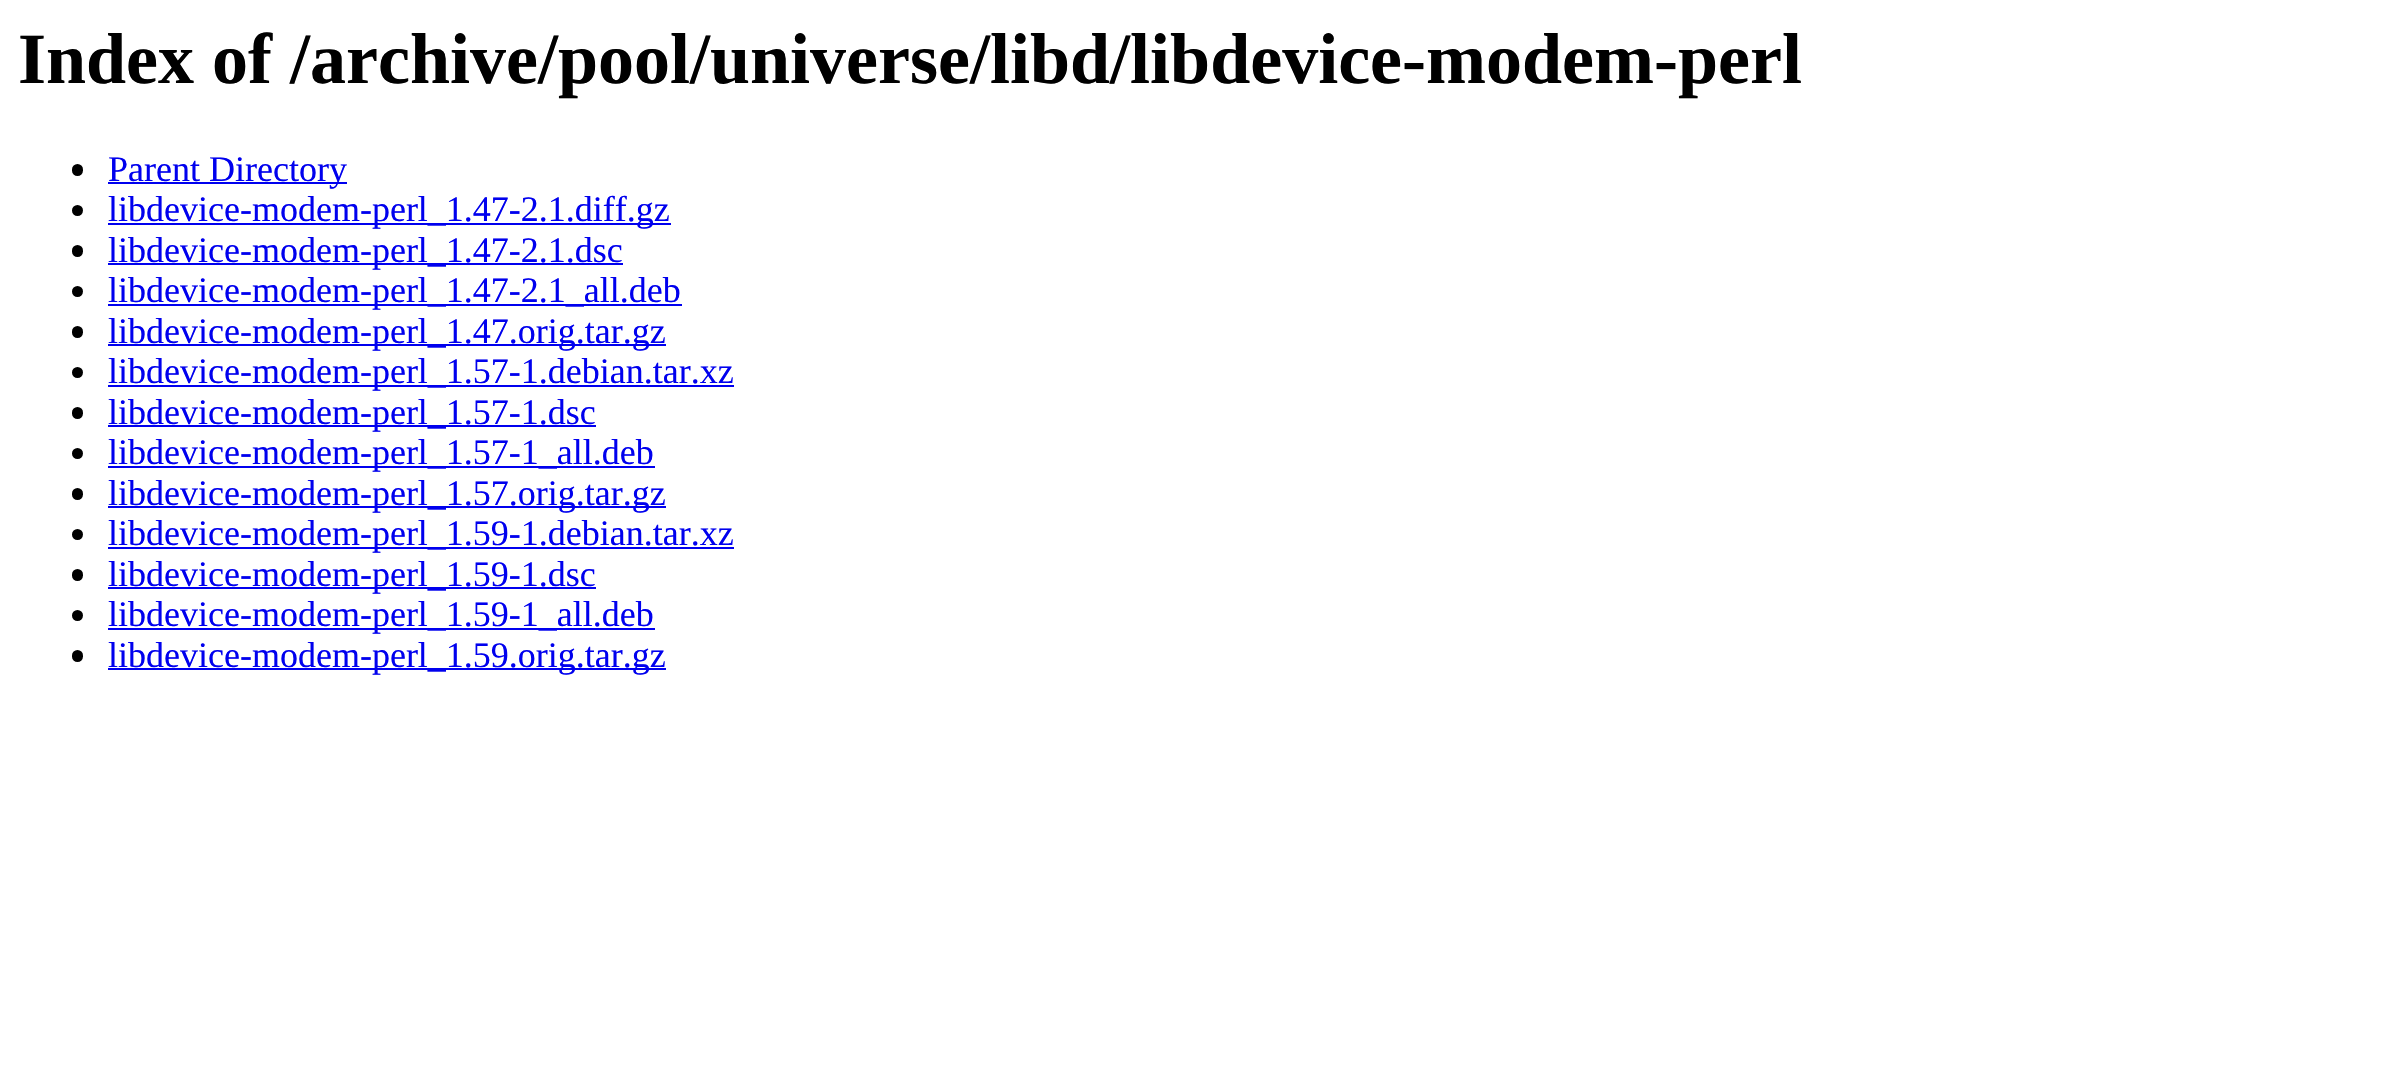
static SkFont makeFont(const char* family, int weight, float size, bool italic = false) {
  SkFontStyle style(weight, SkFontStyle::kNormal_Width,
    italic ? SkFontStyle::kItalic_Slant : SkFontStyle::kUpright_Slant);
  SkFont result(fontMgr->matchFamilyStyle(family, style), size);
  result.setSubpixel(true);
  return result;
}

static void text(SkCanvas* c, const char* s, float x, float y, const SkFont& font, SkColor color) {
  SkPaint ink(SkColor4f::FromColor(color));
  ink.setAntiAlias(true);
  c->drawString(s, x, y, font, ink);
}

static void box(SkCanvas* c, float l, float t, float r, float b, SkColor color) {
  SkPaint ink(SkColor4f::FromColor(color));
  ink.setAntiAlias(true);
  c->drawRect(SkRect::MakeLTRB(l, t, r, b), ink);
}

static void roundBox(SkCanvas* c, float l, float t, float r, float b, float radius, SkColor color) {
  SkPaint ink(SkColor4f::FromColor(color));
  ink.setAntiAlias(true);
  c->drawRoundRect(SkRect::MakeLTRB(l, t, r, b), radius, radius, ink);
}

void draw(SkCanvas* c) {
  SkPaint paint;
  paint.setAntiAlias(true);
  c->clear(0xffffffff);
  SkFont face1 = makeFont("Liberation Serif", 700, 72);
  text(c, "Index of /archive/pool/universe/libd/libdevice-modem-perl", 18, 83, face1, 0xff000000);
  roundBox(c, 72, 164, 83, 176, 5.5f, 0xff000000);
  box(c, 108, 182, 347, 184, 0xff0000ee);
  SkFont face2 = makeFont("Liberation Serif", 400, 36);
  text(c, "Parent Directory", 108, 181, face2, 0xff0000ee);
  paint.setColor(0xff000000);
  c->drawCircle(77.5f, 210.5f, 5.5f, paint);
  box(c, 108, 223, 671, 225, 0xff0000ee);
  text(c, "libdevice-modem-perl_1.47-2.1.diff.gz", 108, 221, face2, 0xff0000ee);
  roundBox(c, 72, 245, 83, 257, 5.5f, 0xff000000);
  box(c, 108, 263, 623, 265, 0xff0000ee);
  text(c, "libdevice-modem-perl_1.47-2.1.dsc", 108, 262, face2, 0xff0000ee);
  c->drawCircle(77.5f, 291.5f, 5.5f, paint);
  box(c, 108, 304, 682, 306, 0xff0000ee);
  text(c, "libdevice-modem-perl_1.47-2.1_all.deb", 108, 302, face2, 0xff0000ee);
  roundBox(c, 72, 326, 83, 338, 5.5f, 0xff000000);
  box(c, 108, 344, 666, 346, 0xff0000ee);
  text(c, "libdevice-modem-perl_1.47.orig.tar.gz", 108, 343, face2, 0xff0000ee);
  c->drawCircle(77.5f, 372.5f, 5.5f, paint);
  box(c, 108, 385, 734, 387, 0xff0000ee);
  text(c, "libdevice-modem-perl_1.57-1.debian.tar.xz", 108, 383, face2, 0xff0000ee);
  roundBox(c, 72, 407, 83, 419, 5.5f, 0xff000000);
  box(c, 108, 425, 596, 427, 0xff0000ee);
  text(c, "libdevice-modem-perl_1.57-1.dsc", 108, 424, face2, 0xff0000ee);
  c->drawCircle(77.5f, 453.5f, 5.5f, paint);
  box(c, 108, 466, 655, 468, 0xff0000ee);
  text(c, "libdevice-modem-perl_1.57-1_all.deb", 108, 464, face2, 0xff0000ee);
  roundBox(c, 72, 488, 83, 500, 5.5f, 0xff000000);
  box(c, 108, 506, 666, 508, 0xff0000ee);
  text(c, "libdevice-modem-perl_1.57.orig.tar.gz", 108, 505, face2, 0xff0000ee);
  c->drawCircle(77.5f, 534.5f, 5.5f, paint);
  box(c, 108, 547, 734, 549, 0xff0000ee);
  text(c, "libdevice-modem-perl_1.59-1.debian.tar.xz", 108, 545, face2, 0xff0000ee);
  roundBox(c, 72, 569, 83, 581, 5.5f, 0xff000000);
  box(c, 108, 587, 596, 589, 0xff0000ee);
  text(c, "libdevice-modem-perl_1.59-1.dsc", 108, 586, face2, 0xff0000ee);
  c->drawCircle(77.5f, 615.5f, 5.5f, paint);
  box(c, 108, 628, 655, 630, 0xff0000ee);
  text(c, "libdevice-modem-perl_1.59-1_all.deb", 108, 626, face2, 0xff0000ee);
  roundBox(c, 72, 650, 83, 662, 5.5f, 0xff000000);
  box(c, 108, 668, 666, 670, 0xff0000ee);
  text(c, "libdevice-modem-perl_1.59.orig.tar.gz", 108, 667, face2, 0xff0000ee);
}
